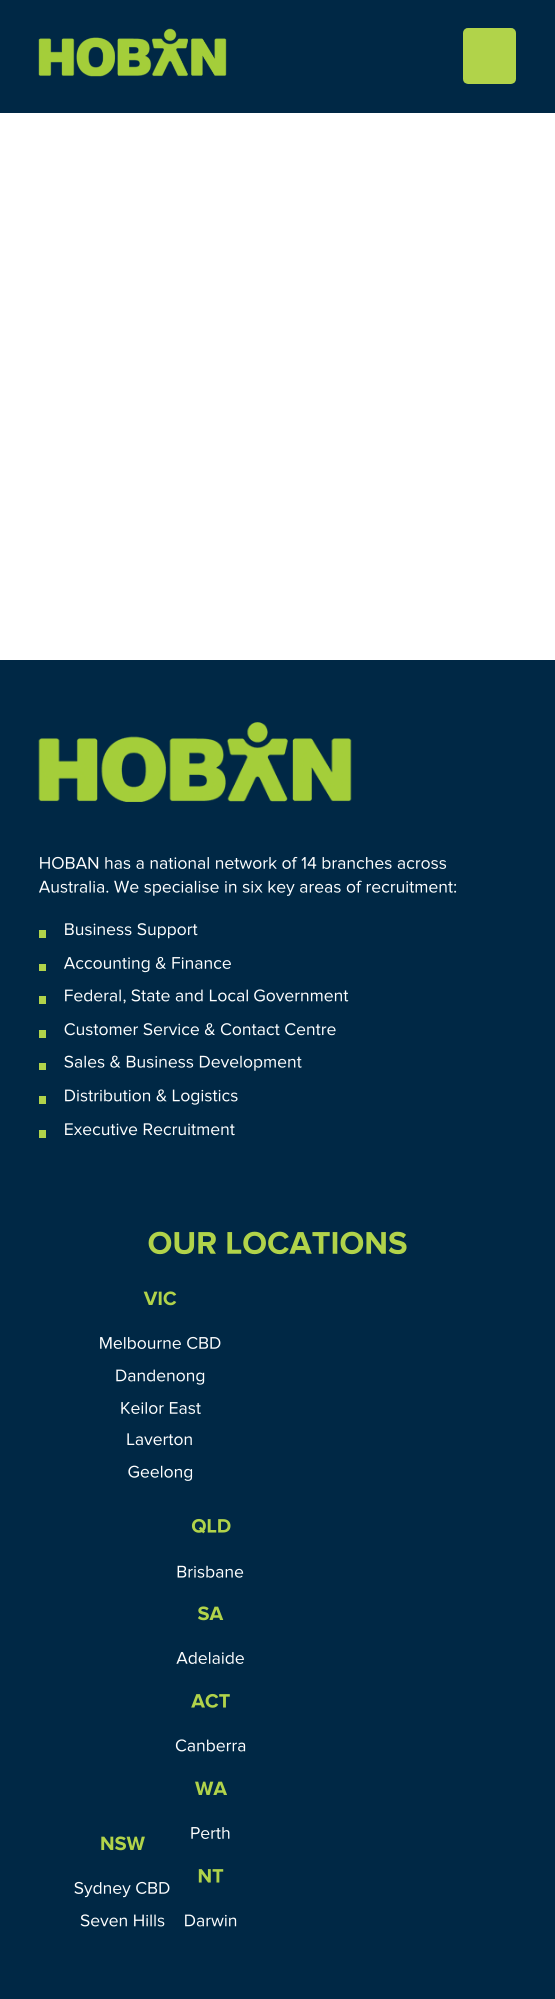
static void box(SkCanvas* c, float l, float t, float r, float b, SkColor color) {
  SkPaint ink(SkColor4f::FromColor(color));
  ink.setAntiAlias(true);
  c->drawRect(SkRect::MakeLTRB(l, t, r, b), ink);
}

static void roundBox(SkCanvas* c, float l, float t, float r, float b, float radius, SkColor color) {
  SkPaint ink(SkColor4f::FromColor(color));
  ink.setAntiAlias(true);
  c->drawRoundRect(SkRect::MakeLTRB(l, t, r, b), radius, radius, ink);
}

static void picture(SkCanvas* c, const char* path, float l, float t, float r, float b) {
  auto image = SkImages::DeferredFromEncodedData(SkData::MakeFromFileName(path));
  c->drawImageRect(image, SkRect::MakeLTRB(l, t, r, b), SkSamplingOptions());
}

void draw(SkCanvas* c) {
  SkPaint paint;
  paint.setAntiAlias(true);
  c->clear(0xffffffff);
  box(c, 0, 0, 555, 113, 0xff002845);
  picture(c, "img_01.png", 38, 28, 227, 77);
  roundBox(c, 463, 28, 516, 84, 5, 0xffb1d34a);
  box(c, 0, 660, 555, 1999, 0xff002845);
  picture(c, "img_02.png", 38, 722, 352, 802);
  picture(c, "img_03.png", 40, 856, 447, 869);
  picture(c, "img_04.png", 39, 880, 457, 896);
  box(c, 39, 930, 46, 938, 0xffb1d34a);
  picture(c, "img_05.png", 65, 923, 198, 939);
  box(c, 39, 964, 46, 971, 0xffb1d34a);
  picture(c, "img_06.png", 64, 956, 231, 973);
  box(c, 39, 996, 46, 1004, 0xffb1d34a);
  picture(c, "img_07.png", 65, 989, 121, 1002);
  picture(c, "img_08.png", 123, 999, 126, 1004);
  picture(c, "img_09.png", 131, 989, 203, 1002);
  picture(c, "img_10.png", 209, 989, 248, 1002);
  picture(c, "img_11.png", 254, 989, 349, 1002);
  box(c, 39, 1030, 46, 1038, 0xffb1d34a);
  picture(c, "img_12.png", 64, 1023, 336, 1036);
  box(c, 39, 1063, 46, 1070, 0xffb1d34a);
  picture(c, "img_13.png", 64, 1055, 302, 1071);
  box(c, 39, 1096, 46, 1104, 0xffb1d34a);
  picture(c, "img_14.png", 65, 1089, 238, 1105);
  box(c, 39, 1130, 46, 1138, 0xffb1d34a);
  picture(c, "img_15.png", 65, 1123, 235, 1136);
  picture(c, "img_16.png", 148, 1231, 407, 1255);
  picture(c, "img_17.png", 143, 1291, 177, 1306);
  picture(c, "img_18.png", 100, 1336, 221, 1349);
  picture(c, "img_19.png", 116, 1369, 205, 1385);
  picture(c, "img_20.png", 121, 1402, 201, 1414);
  picture(c, "img_21.png", 127, 1433, 192, 1446);
  picture(c, "img_22.png", 128, 1465, 193, 1481);
  picture(c, "img_23.png", 101, 1836, 145, 1851);
  picture(c, "img_24.png", 74, 1881, 170, 1898);
  picture(c, "img_25.png", 80, 1914, 165, 1927);
  picture(c, "img_26.png", 191, 1518, 231, 1534);
  picture(c, "img_27.png", 177, 1565, 244, 1578);
  picture(c, "img_28.png", 198, 1606, 224, 1621);
  picture(c, "img_29.png", 176, 1652, 244, 1664);
  picture(c, "img_30.png", 191, 1693, 230, 1708);
  picture(c, "img_31.png", 175, 1739, 246, 1752);
  picture(c, "img_32.png", 195, 1781, 227, 1795);
  picture(c, "img_33.png", 191, 1827, 230, 1839);
  picture(c, "img_34.png", 198, 1869, 224, 1883);
  picture(c, "img_35.png", 185, 1914, 237, 1927);
}
